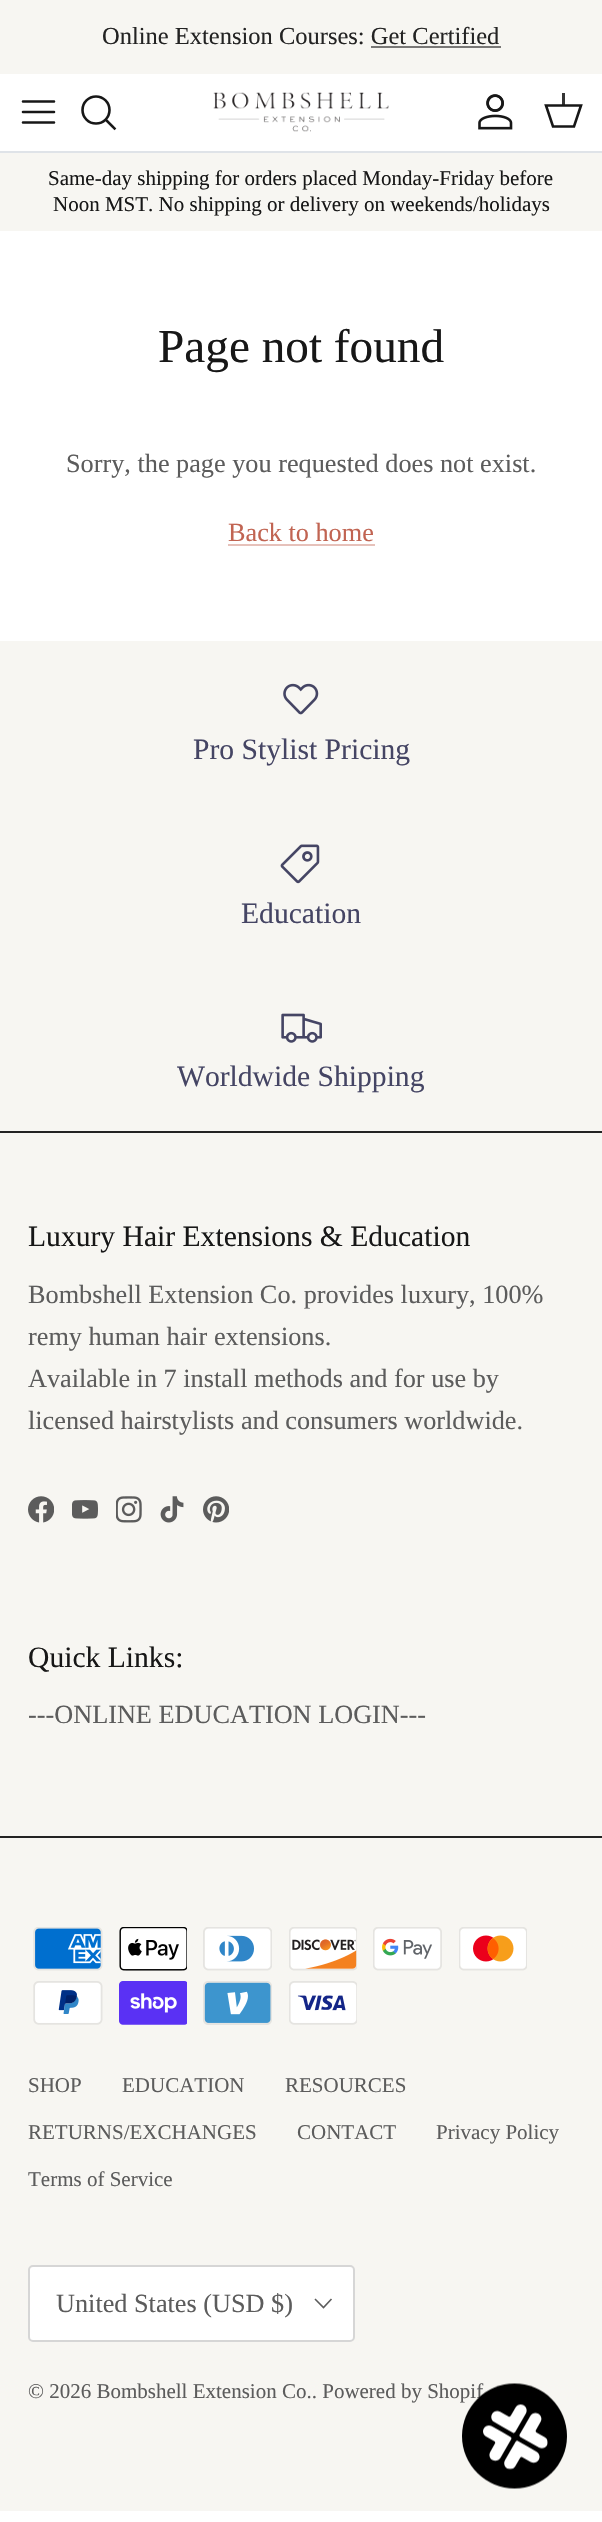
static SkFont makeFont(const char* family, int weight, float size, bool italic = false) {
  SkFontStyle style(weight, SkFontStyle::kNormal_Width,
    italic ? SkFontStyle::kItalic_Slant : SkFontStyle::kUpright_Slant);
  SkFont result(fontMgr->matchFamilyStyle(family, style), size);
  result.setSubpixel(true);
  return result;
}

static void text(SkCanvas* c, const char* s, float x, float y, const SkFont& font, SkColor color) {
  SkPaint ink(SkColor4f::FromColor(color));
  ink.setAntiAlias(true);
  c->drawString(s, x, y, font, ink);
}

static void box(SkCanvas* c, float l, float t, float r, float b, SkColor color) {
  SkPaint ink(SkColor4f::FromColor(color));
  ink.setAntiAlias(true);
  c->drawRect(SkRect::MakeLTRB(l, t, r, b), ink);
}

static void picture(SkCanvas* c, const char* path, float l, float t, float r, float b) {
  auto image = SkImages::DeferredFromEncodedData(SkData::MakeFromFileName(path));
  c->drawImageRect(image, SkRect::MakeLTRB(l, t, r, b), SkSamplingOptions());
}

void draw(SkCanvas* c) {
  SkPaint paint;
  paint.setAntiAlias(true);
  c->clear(0xffffffff);
  box(c, 0, 0, 602, 74, 0xfff7f6f2);
  SkFont face1 = makeFont("Liberation Serif", 400, 24.5f);
  text(c, "Online Extension Courses: Get Certified", 102, 44, face1, 0xff232323);
  box(c, 371, 46, 501, 48, 0xff787776);
  box(c, 0, 151, 602, 153, 0xffdfe3e8);
  paint.setStyle(SkPaint::kStroke_Style);
  paint.setStrokeWidth(2.6f);
  paint.setStrokeCap(SkPaint::kRound_Cap);
  paint.setStrokeJoin(SkPaint::kRound_Join);
  paint.setColor(0xff171717);
  c->drawPath(SkPathBuilder().moveTo(23, 112).lineTo(54, 112).moveTo(23, 101.5f).lineTo(54, 101.5f).moveTo(23, 122.5f).lineTo(54, 122.5f).detach(), paint);
  paint.setStrokeCap(SkPaint::kButt_Cap);
  paint.setStrokeJoin(SkPaint::kMiter_Join);
  c->drawCircle(96, 110, 13.5f, paint);
  paint.setStrokeCap(SkPaint::kSquare_Cap);
  c->drawPath(SkPathBuilder().moveTo(106.5f, 120.5f).lineTo(114.5f, 128.5f).detach(), paint);
  picture(c, "img_01.png", 213, 92, 389, 132);
  picture(c, "img_02.png", 478, 94, 513, 130);
  paint.setStrokeCap(SkPaint::kButt_Cap);
  c->drawPath(SkPathBuilder().moveTo(546, 105.5f).lineTo(581, 105.5f).lineTo(574, 126.5f).lineTo(553, 126.5f).close().detach(), paint);
  box(c, 562, 93, 565, 106, 0xde171717);
  box(c, 0, 153, 602, 231, 0xfff7f6f2);
  SkFont face2 = makeFont("Liberation Serif", 400, 21);
  text(c, "Same-day shipping for orders placed Monday-Friday before", 48, 185, face2, 0xff171717);
  text(c, "Noon MST. No shipping or delivery on weekends/holidays", 53, 211, face2, 0xff171717);
  SkFont face3 = makeFont("Liberation Serif", 400, 47.25f);
  text(c, "Page not found", 158, 362, face3, 0xff171717);
  SkFont face4 = makeFont("Liberation Serif", 400, 26.25f);
  text(c, "Sorry, the page you requested does not exist.", 66, 472, face4, 0xff5c5c5c);
  text(c, "Back to home", 228, 541, face4, 0xffc16452);
  box(c, 228, 544, 375, 546, 0xffe6c1ba);
  box(c, 0, 641, 602, 1131, 0xfff7f6f2);
  picture(c, "img_03.png", 283, 683, 319, 715);
  SkFont face5 = makeFont("Liberation Serif", 400, 29.6f);
  text(c, "Pro Stylist Pricing", 193, 759, face5, 0xff454564);
  picture(c, "img_04.png", 280, 844, 320, 884);
  text(c, "Education", 241, 923, face5, 0xff454564);
  picture(c, "img_05.png", 281, 1013, 322, 1043);
  text(c, "Worldwide Shipping", 177, 1086, face5, 0xff454564);
  box(c, 0, 1133, 602, 2511, 0xfff7f6f2);
  box(c, 0, 1131, 602, 1133, 0xff232323);
  text(c, "Luxury Hair Extensions & Education", 28, 1246, face5, 0xff171717);
  text(c, "Bombshell Extension Co. provides luxury, 100%", 28, 1303, face4, 0xff5c5c5c);
  text(c, "remy human hair extensions.", 28, 1345, face4, 0xff5c5c5c);
  text(c, "Available in 7 install methods and for use by", 28, 1387, face4, 0xff5c5c5c);
  text(c, "licensed hairstylists and consumers worldwide.", 28, 1429, face4, 0xff5c5c5c);
  picture(c, "img_06.png", 28, 1496, 54, 1523);
  picture(c, "img_07.png", 72, 1500, 98, 1519);
  picture(c, "img_08.png", 116, 1496, 142, 1523);
  picture(c, "img_09.png", 160, 1496, 184, 1523);
  picture(c, "img_10.png", 203, 1496, 229, 1523);
  text(c, "Quick Links:", 28, 1667, face5, 0xff171717);
  text(c, "---ONLINE EDUCATION LOGIN---", 28, 1723, face4, 0xff5c5c5c);
  box(c, 0, 1836, 602, 1838, 0xff232323);
  picture(c, "img_11.png", 33, 1927, 103, 1971);
  picture(c, "img_12.png", 119, 1927, 187, 1971);
  picture(c, "img_13.png", 203, 1927, 272, 1971);
  picture(c, "img_14.png", 289, 1927, 357, 1971);
  picture(c, "img_15.png", 373, 1927, 442, 1971);
  picture(c, "img_16.png", 459, 1927, 527, 1971);
  picture(c, "img_17.png", 33, 1981, 103, 2025);
  picture(c, "img_18.png", 119, 1981, 187, 2025);
  picture(c, "img_19.png", 203, 1981, 272, 2025);
  picture(c, "img_20.png", 289, 1981, 357, 2025);
  text(c, "SHOP", 28, 2092, face2, 0xff5c5c5c);
  text(c, "EDUCATION", 122, 2092, face2, 0xff5c5c5c);
  text(c, "RESOURCES", 285, 2092, face2, 0xff5c5c5c);
  text(c, "RETURNS/EXCHANGES", 28, 2139, face2, 0xff5c5c5c);
  text(c, "CONTACT", 297, 2139, face2, 0xff5c5c5c);
  text(c, "Privacy Policy", 436, 2139, face2, 0xff5c5c5c);
  text(c, "Terms of Service", 28, 2186, face2, 0xff5c5c5c);
  paint.setStyle(SkPaint::kFill_Style);
  paint.setColor(0xffffffff);
  c->drawRoundRect(SkRect::MakeLTRB(29, 2266, 354, 2341), 4, 4, paint);
  paint.setStyle(SkPaint::kStroke_Style);
  paint.setStrokeWidth(2);
  paint.setColor(0xffd6d6d6);
  c->drawRoundRect(SkRect::MakeLTRB(29, 2266, 354, 2341), 4, 4, paint);
  text(c, "United States (USD $)", 56, 2312, face4, 0xff5c5c5c);
  paint.setStrokeWidth(1.6f);
  paint.setColor(0xff5c5c5c);
  c->drawPath(SkPathBuilder().moveTo(331.5f, 2299).lineTo(323.5f, 2307.5f).lineTo(315, 2299).detach(), paint);
  text(c, "© 2026 Bombshell Extension Co.. Powered by Shopif", 28, 2398, face2, 0xff5c5c5c);
  picture(c, "img_21.png", 462, 2383, 567, 2489);
}
